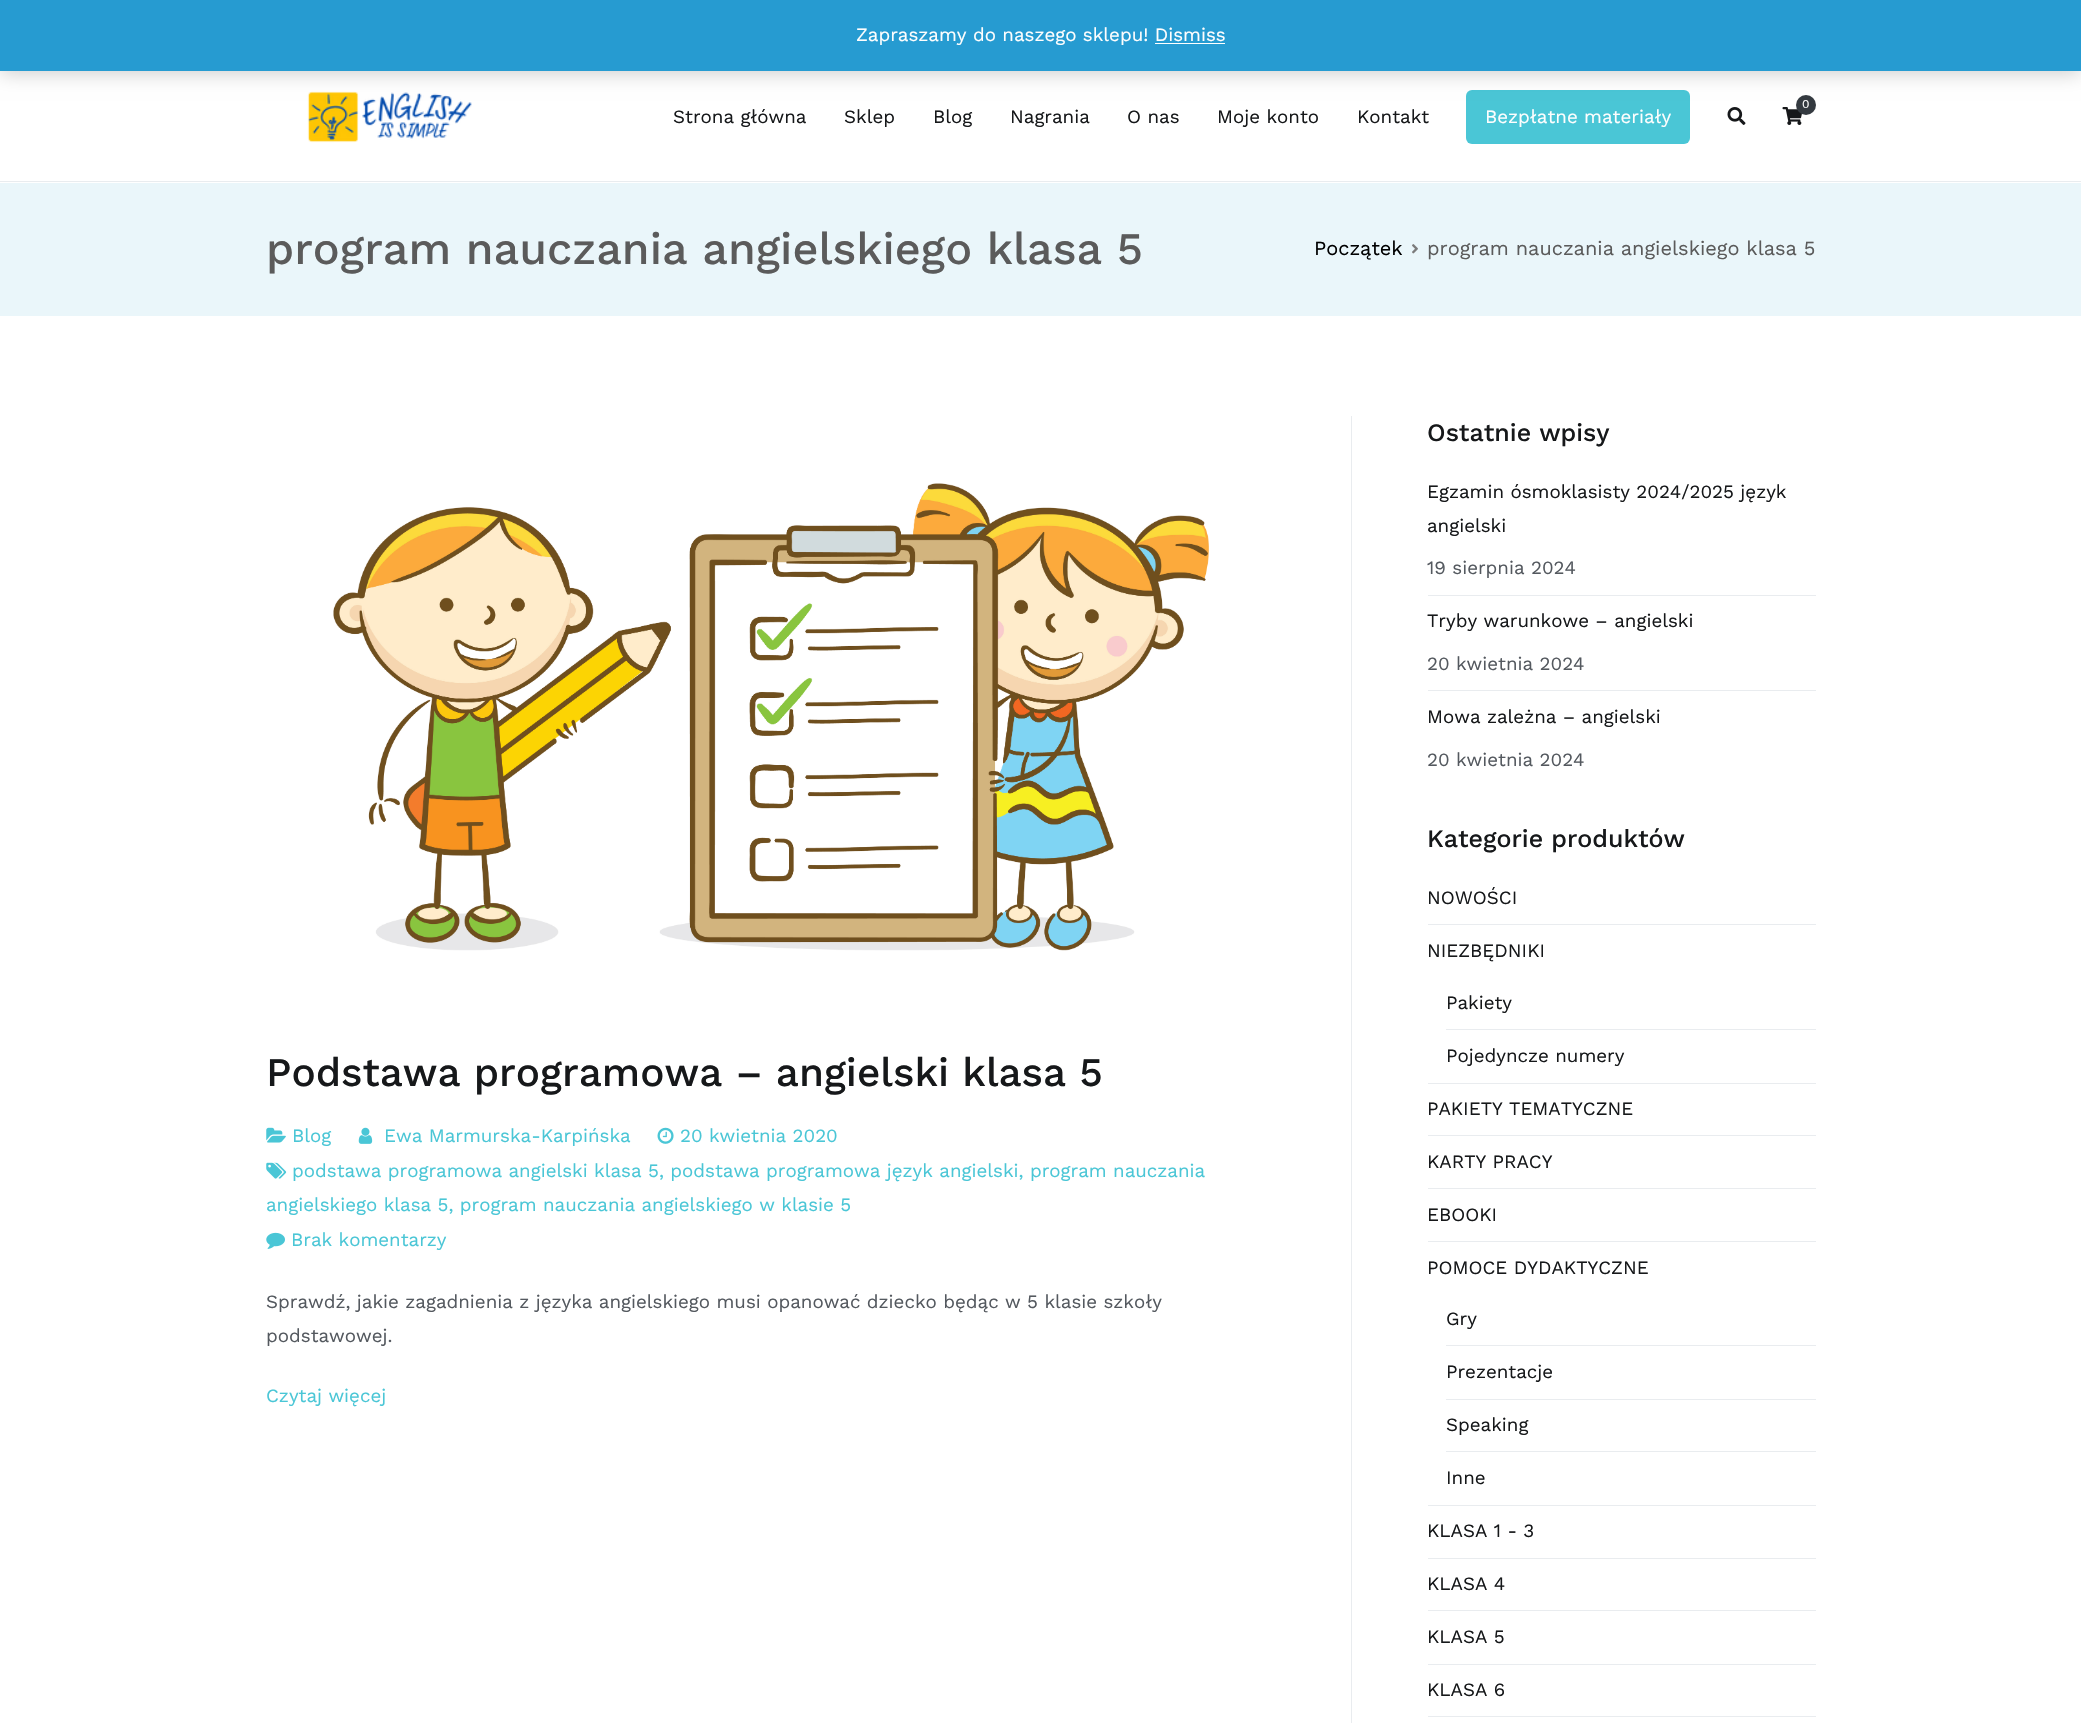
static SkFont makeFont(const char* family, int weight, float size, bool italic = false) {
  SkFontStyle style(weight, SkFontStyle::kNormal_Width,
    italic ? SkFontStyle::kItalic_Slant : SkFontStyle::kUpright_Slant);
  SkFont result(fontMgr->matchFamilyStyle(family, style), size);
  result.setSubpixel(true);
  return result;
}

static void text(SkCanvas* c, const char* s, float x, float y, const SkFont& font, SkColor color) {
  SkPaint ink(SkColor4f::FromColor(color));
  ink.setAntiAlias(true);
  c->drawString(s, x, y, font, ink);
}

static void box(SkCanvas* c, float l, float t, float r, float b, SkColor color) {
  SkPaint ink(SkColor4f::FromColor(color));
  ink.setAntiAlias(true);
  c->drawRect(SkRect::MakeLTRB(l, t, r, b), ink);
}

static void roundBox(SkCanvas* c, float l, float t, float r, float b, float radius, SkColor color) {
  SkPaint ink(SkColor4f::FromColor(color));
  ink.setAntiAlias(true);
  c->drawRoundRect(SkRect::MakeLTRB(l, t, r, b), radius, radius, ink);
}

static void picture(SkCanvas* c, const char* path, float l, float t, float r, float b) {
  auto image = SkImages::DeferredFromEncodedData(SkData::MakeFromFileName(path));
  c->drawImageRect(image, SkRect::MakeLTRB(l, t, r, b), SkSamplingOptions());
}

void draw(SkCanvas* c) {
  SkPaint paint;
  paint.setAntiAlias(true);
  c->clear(0xffffffff);
  picture(c, "img_01.png", 307, 91, 472, 143);
  picture(c, "img_02.png", 1782, 107, 1802, 125);
  paint.setColor(0xff343a40);
  c->drawCircle(1806, 105, 10, paint);
  roundBox(c, 1466, 90, 1690, 144, 6, 0xff4ac6d6);
  paint.setColor(0x33000000);
  paint.setMaskFilter(SkMaskFilter::MakeBlur(kNormal_SkBlurStyle, 9.5f));
  c->drawRect(SkRect::MakeLTRB(0, 1, 2081, 73), paint);
  paint.setMaskFilter(nullptr);
  box(c, 0, 0, 2081, 71, 0xff269bd1);
  SkFont face1 = makeFont("Work Sans", 400, 18.75f);
  text(c, "Zapraszamy do naszego sklepu! Dismiss", 856, 41, face1, 0xfffefefe);
  box(c, 1155, 43, 1225, 44, 0xffffffff);
  box(c, 0, 181, 2081, 182, 0xffe9ecef);
  SkFont face2 = makeFont("Work Sans", 400, 12);
  text(c, "0", 1802, 108, face2, 0xfffefefe);
  text(c, "Strona główna", 673, 123, face1, 0xff16181a);
  text(c, "Sklep", 844, 123, face1, 0xff16181a);
  text(c, "Blog", 933, 123, face1, 0xff16181a);
  text(c, "Nagrania", 1010, 123, face1, 0xff16181a);
  text(c, "O nas", 1127, 123, face1, 0xff16181a);
  text(c, "Moje konto", 1217, 123, face1, 0xff16181a);
  text(c, "Kontakt", 1357, 123, face1, 0xff16181a);
  text(c, "Bezpłatne materiały", 1485, 123, face1, 0xfffefefe);
  picture(c, "img_03.png", 1727, 107, 1746, 125);
  box(c, 0, 183, 2081, 316, 0xffeaf6fa);
  SkFont face3 = makeFont("Work Sans", 500, 45);
  text(c, "program nauczania angielskiego klasa 5", 266, 264, face3, 0xff5b5b5b);
  SkFont face4 = makeFont("Work Sans", 400, 20);
  text(c, "Początek", 1314, 255, face4, 0xff000000);
  picture(c, "img_04.png", 1412, 244, 1418, 254);
  text(c, "program nauczania angielskiego klasa 5", 1427, 255, face4, 0xff5b5b5b);
  picture(c, "img_05.png", 333, 483, 1209, 951);
  SkFont face5 = makeFont("Work Sans", 500, 40.5f);
  text(c, "Podstawa programowa – angielski klasa 5", 266, 1086, face5, 0xff16181a);
  picture(c, "img_06.png", 266, 1127, 286, 1143);
  text(c, "Blog", 292, 1142, face1, 0xff4ac6d6);
  picture(c, "img_07.png", 358, 1127, 373, 1144);
  text(c, "Ewa Marmurska-Karpińska", 384, 1142, face1, 0xff4ac6d6);
  picture(c, "img_08.png", 657, 1127, 674, 1144);
  text(c, "20 kwietnia 2020", 680, 1142, face1, 0xff4ac6d6);
  picture(c, "img_09.png", 266, 1162, 287, 1179);
  text(c, "podstawa programowa angielski klasa 5, podstawa programowa język angielski, program nauczania", 292, 1177, face1, 0xff4ac6d6);
  text(c, "angielskiego klasa 5, program nauczania angielskiego w klasie 5", 266, 1211, face1, 0xff4ac6d6);
  picture(c, "img_10.png", 266, 1232, 285, 1249);
  text(c, "Brak komentarzy", 291, 1246, face1, 0xff4ac6d6);
  text(c, "Sprawdź, jakie zagadnienia z języka angielskiego musi opanować dziecko będąc w 5 klasie szkoły", 266, 1308, face1, 0xff54595f);
  text(c, "podstawowej.", 266, 1342, face1, 0xff54595f);
  text(c, "Czytaj więcej", 266, 1402, face1, 0xff4ac6d6);
  box(c, 1351, 416, 1352, 1723, 0xffe9ecef);
  SkFont face6 = makeFont("Work Sans", 500, 25);
  text(c, "Ostatnie wpisy", 1427, 441, face6, 0xff16181a);
  box(c, 1428, 595, 1816, 596, 0xffe9ecef);
  text(c, "Egzamin ósmoklasisty 2024/2025 język", 1427, 498, face1, 0xff16181a);
  text(c, "angielski", 1427, 532, face1, 0xff16181a);
  text(c, "19 sierpnia 2024", 1427, 574, face1, 0xff54595f);
  box(c, 1428, 690, 1816, 691, 0xffe9ecef);
  text(c, "Tryby warunkowe – angielski", 1427, 627, face1, 0xff16181a);
  text(c, "20 kwietnia 2024", 1427, 670, face1, 0xff54595f);
  text(c, "Mowa zależna – angielski", 1427, 723, face1, 0xff16181a);
  text(c, "20 kwietnia 2024", 1427, 766, face1, 0xff54595f);
  text(c, "Kategorie produktów", 1427, 847, face6, 0xff16181a);
  box(c, 1428, 924, 1816, 925, 0xffe9ecef);
  text(c, "NOWOŚCI", 1427, 904, face1, 0xff16181a);
  box(c, 1428, 1083, 1816, 1084, 0xffe9ecef);
  text(c, "NIEZBĘDNIKI", 1427, 957, face1, 0xff16181a);
  box(c, 1446, 1029, 1816, 1030, 0xffe9ecef);
  text(c, "Pakiety", 1446, 1009, face1, 0xff16181a);
  text(c, "Pojedyncze numery", 1446, 1062, face1, 0xff16181a);
  box(c, 1428, 1135, 1816, 1136, 0xffe9ecef);
  text(c, "PAKIETY TEMATYCZNE", 1427, 1115, face1, 0xff16181a);
  box(c, 1428, 1188, 1816, 1189, 0xffe9ecef);
  text(c, "KARTY PRACY", 1427, 1168, face1, 0xff16181a);
  box(c, 1428, 1241, 1816, 1242, 0xffe9ecef);
  text(c, "EBOOKI", 1427, 1221, face1, 0xff16181a);
  box(c, 1428, 1505, 1816, 1506, 0xffe9ecef);
  text(c, "POMOCE DYDAKTYCZNE", 1427, 1274, face1, 0xff16181a);
  box(c, 1446, 1345, 1816, 1346, 0xffe9ecef);
  text(c, "Gry", 1446, 1325, face1, 0xff16181a);
  box(c, 1446, 1399, 1816, 1400, 0xffe9ecef);
  text(c, "Prezentacje", 1446, 1378, face1, 0xff16181a);
  box(c, 1446, 1451, 1816, 1452, 0xffe9ecef);
  text(c, "Speaking", 1446, 1431, face1, 0xff16181a);
  text(c, "Inne", 1446, 1484, face1, 0xff16181a);
  box(c, 1428, 1558, 1816, 1559, 0xffe9ecef);
  text(c, "KLASA 1 - 3", 1427, 1537, face1, 0xff16181a);
  box(c, 1428, 1610, 1816, 1611, 0xffe9ecef);
  text(c, "KLASA 4", 1427, 1590, face1, 0xff16181a);
  box(c, 1428, 1664, 1816, 1665, 0xffe9ecef);
  text(c, "KLASA 5", 1427, 1643, face1, 0xff16181a);
  box(c, 1428, 1716, 1816, 1717, 0xffe9ecef);
  text(c, "KLASA 6", 1427, 1696, face1, 0xff16181a);
}
